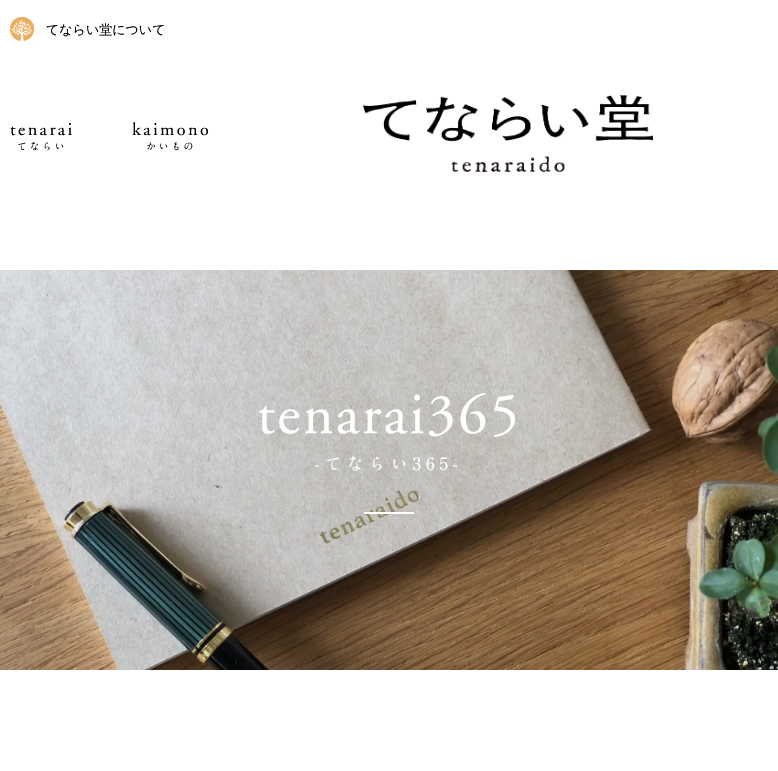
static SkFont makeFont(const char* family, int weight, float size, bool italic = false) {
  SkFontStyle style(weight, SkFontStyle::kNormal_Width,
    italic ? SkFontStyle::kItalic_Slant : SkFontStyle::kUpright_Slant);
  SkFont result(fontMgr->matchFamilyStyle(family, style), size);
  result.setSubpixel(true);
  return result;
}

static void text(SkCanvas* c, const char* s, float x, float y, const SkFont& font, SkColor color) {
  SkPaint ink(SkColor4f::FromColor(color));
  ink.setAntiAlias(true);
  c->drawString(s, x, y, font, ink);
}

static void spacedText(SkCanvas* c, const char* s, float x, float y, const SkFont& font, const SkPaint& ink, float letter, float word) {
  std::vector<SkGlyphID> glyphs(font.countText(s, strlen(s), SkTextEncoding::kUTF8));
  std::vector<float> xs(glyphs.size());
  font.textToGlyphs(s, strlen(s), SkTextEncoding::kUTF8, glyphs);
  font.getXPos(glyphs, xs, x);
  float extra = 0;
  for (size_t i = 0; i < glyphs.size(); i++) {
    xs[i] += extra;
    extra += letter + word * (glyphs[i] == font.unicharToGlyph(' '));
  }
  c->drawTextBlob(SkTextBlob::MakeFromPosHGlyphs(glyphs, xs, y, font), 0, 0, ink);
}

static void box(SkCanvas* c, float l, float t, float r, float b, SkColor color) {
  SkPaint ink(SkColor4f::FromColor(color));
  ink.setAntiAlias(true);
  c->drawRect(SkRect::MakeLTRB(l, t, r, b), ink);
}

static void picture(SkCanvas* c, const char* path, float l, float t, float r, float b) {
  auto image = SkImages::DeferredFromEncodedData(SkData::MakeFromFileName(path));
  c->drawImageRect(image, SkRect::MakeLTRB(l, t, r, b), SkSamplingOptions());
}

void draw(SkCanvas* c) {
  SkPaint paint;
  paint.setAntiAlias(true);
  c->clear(0xffffffff);
  picture(c, "img_01.png", 10, 17, 34, 41);
  SkFont face1 = makeFont("WenQuanYi Zen Hei", 500, 13);
  text(c, "てならい堂について", 46, 34, face1, 0xff000000);
  SkFont face2 = makeFont("Adobe Garamond", 400, 18);
  paint.setColor(0xff000000);
  spacedText(c, "tenarai", 10, 135, face2, paint, 2.5f, 0);
  SkFont face3 = makeFont("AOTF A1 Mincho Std", 700, 10);
  spacedText(c, "てならい", 17, 150, face3, paint, 2.5f, 0);
  spacedText(c, "kaimono", 132, 135, face2, paint, 2.5f, 0);
  spacedText(c, "かいもの", 146, 150, face3, paint, 2.5f, 0);
  picture(c, "img_02.png", 363, 95, 653, 172);
  picture(c, "img_03.png", 0, 270, 778, 670);
  SkFont face4 = makeFont("Adobe Garamond", 400, 58);
  paint.setColor(0xffffffff);
  spacedText(c, "tenarai365", 257, 433, face4, paint, 2.5f, 0);
  SkFont face5 = makeFont("AOTF A1 Mincho Std", 700, 17);
  spacedText(c, "-てならい365-", 315, 470, face5, paint, 5, 0);
  box(c, 364, 512, 414, 514, 0xffffffff);
}
